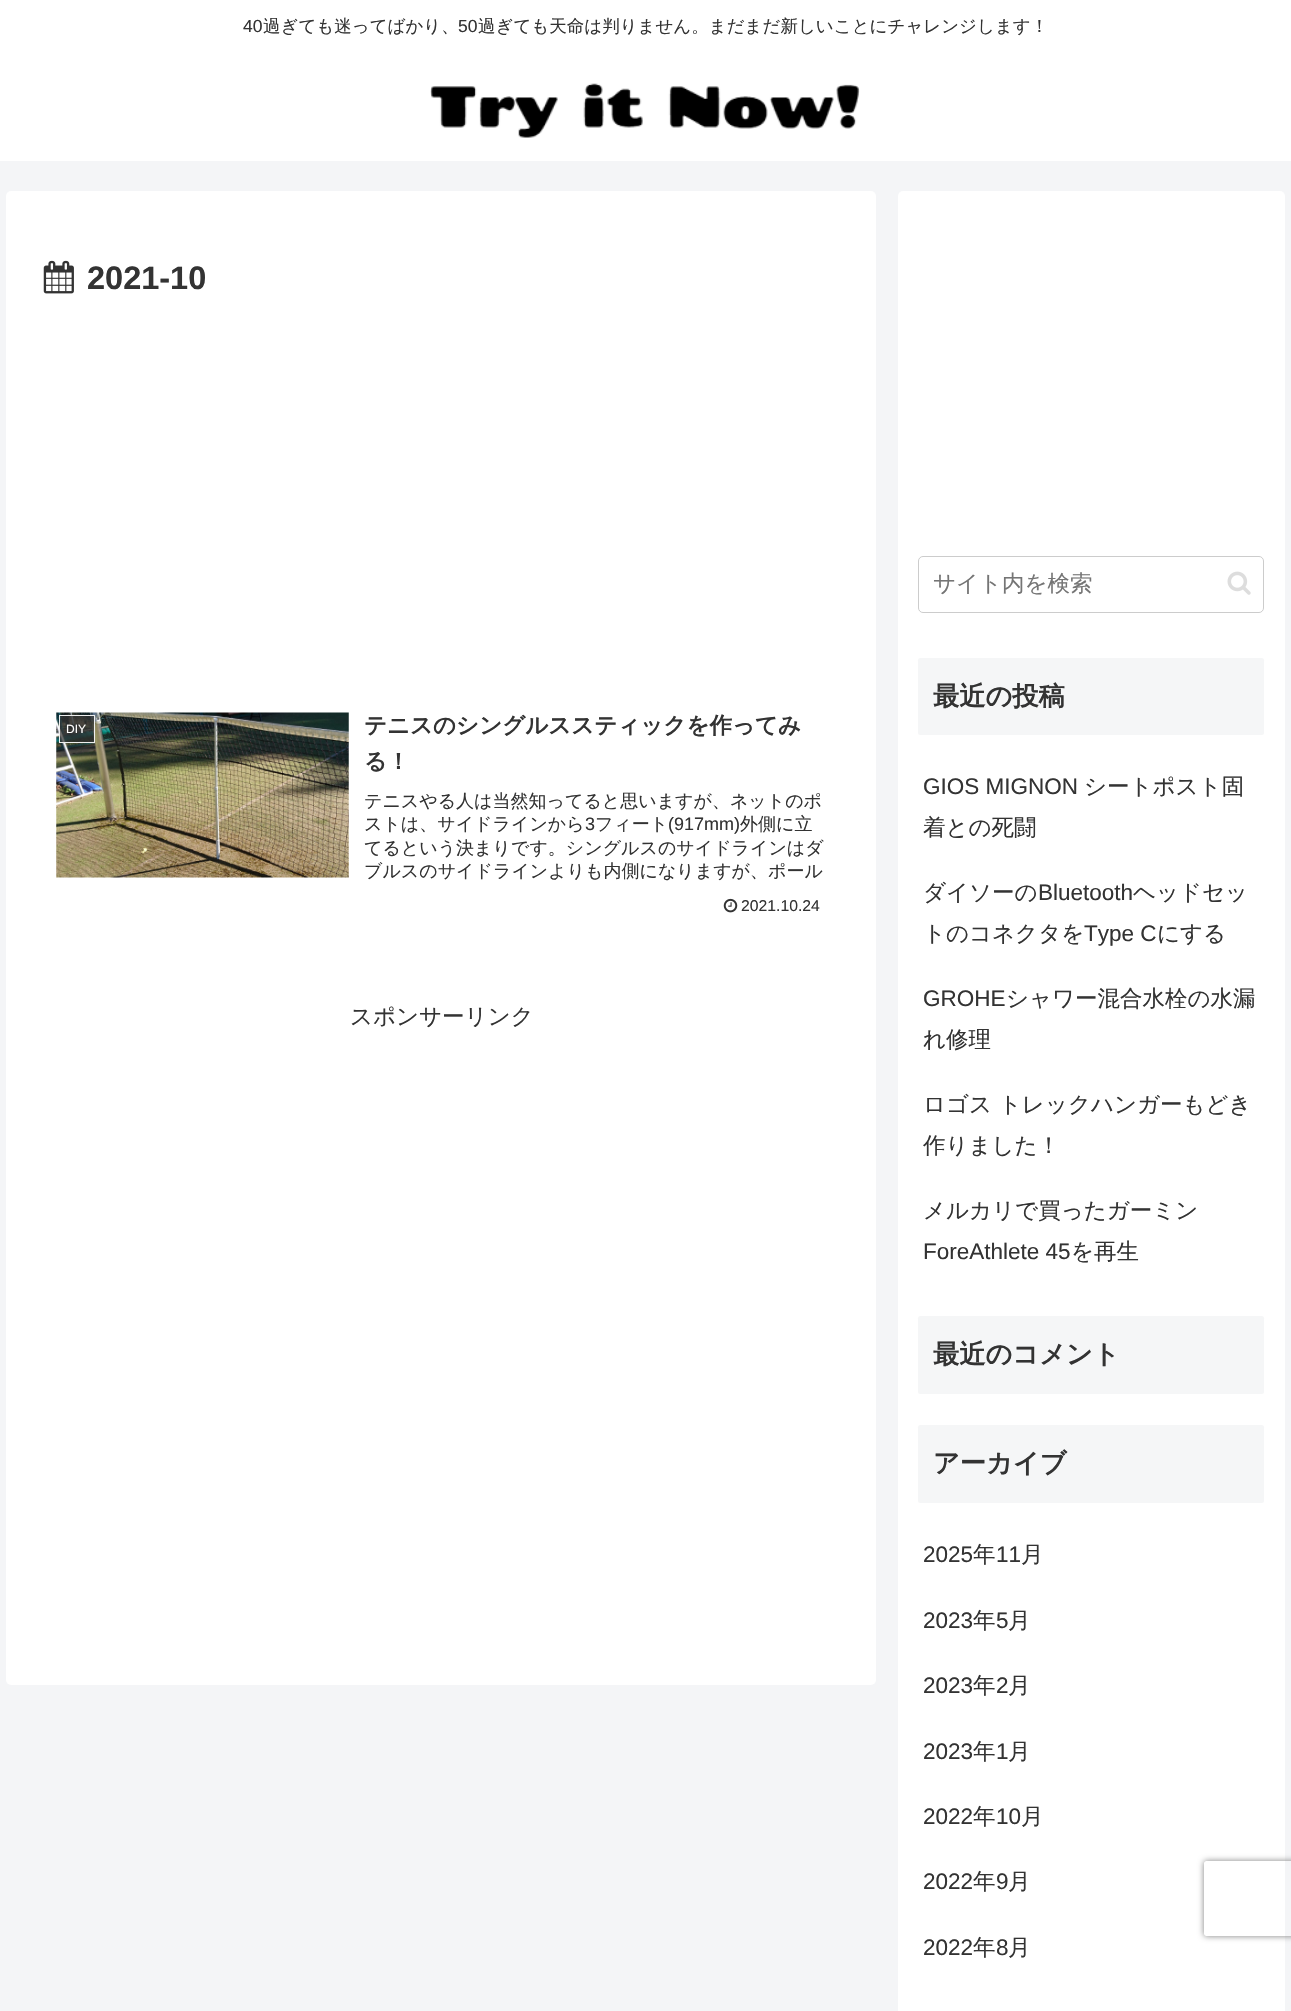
static SkFont makeFont(const char* family, int weight, float size, bool italic = false) {
  SkFontStyle style(weight, SkFontStyle::kNormal_Width,
    italic ? SkFontStyle::kItalic_Slant : SkFontStyle::kUpright_Slant);
  SkFont result(fontMgr->matchFamilyStyle(family, style), size);
  result.setSubpixel(true);
  return result;
}

static void text(SkCanvas* c, const char* s, float x, float y, const SkFont& font, SkColor color) {
  SkPaint ink(SkColor4f::FromColor(color));
  ink.setAntiAlias(true);
  c->drawString(s, x, y, font, ink);
}

static void box(SkCanvas* c, float l, float t, float r, float b, SkColor color) {
  SkPaint ink(SkColor4f::FromColor(color));
  ink.setAntiAlias(true);
  c->drawRect(SkRect::MakeLTRB(l, t, r, b), ink);
}

static void roundBox(SkCanvas* c, float l, float t, float r, float b, float radius, SkColor color) {
  SkPaint ink(SkColor4f::FromColor(color));
  ink.setAntiAlias(true);
  c->drawRoundRect(SkRect::MakeLTRB(l, t, r, b), radius, radius, ink);
}

static void picture(SkCanvas* c, const char* path, float l, float t, float r, float b) {
  auto image = SkImages::DeferredFromEncodedData(SkData::MakeFromFileName(path));
  c->drawImageRect(image, SkRect::MakeLTRB(l, t, r, b), SkSamplingOptions());
}

void draw(SkCanvas* c) {
  SkPaint paint;
  paint.setAntiAlias(true);
  c->clear(0xfff4f5f7);
  box(c, 0, 0, 1291, 161, 0xffffffff);
  SkFont face1 = makeFont("Liberation Sans", 400, 17.5f);
  text(c, "40", 243, 32, face1, 0xff333333);
  SkFont face2 = makeFont("WenQuanYi Zen Hei", 500, 17.5f);
  text(c, "過ぎても迷ってばかり、", 263, 32, face2, 0xff333333);
  text(c, "50", 458, 32, face1, 0xff333333);
  text(c, "過ぎても天命は判りません。まだまだ新しいことにチャレンジします！", 478, 32, face2, 0xff333333);
  picture(c, "img_01.png", 430, 83, 860, 138);
  roundBox(c, 6, 191, 876, 1685, 5, 0xffffffff);
  picture(c, "img_02.png", 43, 260, 74, 294);
  SkFont face3 = makeFont("Liberation Sans", 700, 32.5f);
  text(c, "2021-10", 87, 289, face3, 0xff333333);
  picture(c, "img_03.png", 56, 712, 349, 878);
  paint.setColor(0xb3333333);
  c->drawRect(SkRect::MakeLTRB(59.5f, 715.5f, 94.5f, 742.5f), paint);
  paint.setStyle(SkPaint::kStroke_Style);
  paint.setStrokeWidth(1);
  paint.setColor(0xffeeeeee);
  c->drawRect(SkRect::MakeLTRB(59.5f, 715.5f, 94.5f, 742.5f), paint);
  SkFont face4 = makeFont("Liberation Sans", 400, 12);
  text(c, "DIY", 66, 733, face4, 0xffffffff);
  SkFont face5 = makeFont("WenQuanYi Zen Hei", 700, 22.5f);
  text(c, "テニスのシングルススティックを作ってみ", 364, 733, face5, 0xff333333);
  text(c, "る！", 364, 769, face5, 0xff333333);
  SkFont face6 = makeFont("WenQuanYi Zen Hei", 500, 18);
  text(c, "テニスやる人は当然知ってると思いますが、ネットのポ", 364, 807, face6, 0xff333333);
  text(c, "ストは、サイドラインから", 364, 830, face6, 0xff333333);
  SkFont face7 = makeFont("Liberation Sans", 400, 18);
  text(c, "3", 585, 830, face7, 0xff333333);
  text(c, "フィート", 595, 830, face6, 0xff333333);
  text(c, "(917mm)", 668, 830, face7, 0xff333333);
  text(c, "外側に立", 740, 830, face6, 0xff333333);
  text(c, "てるという決まりです。シングルスのサイドラインはダ", 364, 854, face6, 0xff333333);
  text(c, "ブルスのサイドラインよりも内側になりますが、ポール", 364, 877, face6, 0xff333333);
  picture(c, "img_04.png", 723, 898, 738, 913);
  SkFont face8 = makeFont("Liberation Sans", 400, 15.75f);
  text(c, "2021.10.24", 741, 911, face8, 0xff333333);
  SkFont face9 = makeFont("WenQuanYi Zen Hei", 500, 22.5f);
  text(c, "スポンサーリンク", 350, 1024, face9, 0xff333333);
  roundBox(c, 898, 191, 1285, 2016, 5, 0xffffffff);
  paint.setColor(0xffcccccc);
  c->drawRoundRect(SkRect::MakeLTRB(918.5f, 556.5f, 1263.5f, 612.5f), 4.5f, 4.5f, paint);
  text(c, "サイト内を検索", 933, 591, face9, 0xff757575);
  picture(c, "img_05.png", 1227, 571, 1251, 595);
  roundBox(c, 918, 658, 1264, 735, 2.5f, 0xfff5f6f7);
  SkFont face10 = makeFont("WenQuanYi Zen Hei", 700, 26.25f);
  text(c, "最近の投稿", 933, 705, face10, 0xff333333);
  SkFont face11 = makeFont("Liberation Sans", 400, 22.5f);
  text(c, "GIOS MIGNON", 923, 794, face11, 0xff333333);
  text(c, "シートポスト固", 1084, 794, face9, 0xff333333);
  text(c, "着との死闘", 923, 835, face9, 0xff333333);
  text(c, "ダイソーの", 923, 900, face9, 0xff333333);
  text(c, "Bluetooth", 1038, 900, face11, 0xff333333);
  text(c, "ヘッドセッ", 1133, 900, face9, 0xff333333);
  text(c, "トのコネクタを", 923, 941, face9, 0xff333333);
  text(c, "Type C", 1084, 941, face11, 0xff333333);
  text(c, "にする", 1157, 941, face9, 0xff333333);
  text(c, "GROHE", 923, 1006, face11, 0xff333333);
  text(c, "シャワー混合水栓の水漏", 1006, 1006, face9, 0xff333333);
  text(c, "れ修理", 923, 1047, face9, 0xff333333);
  text(c, "ロゴス トレックハンガーもどき", 923, 1112, face9, 0xff333333);
  text(c, "作りました！", 923, 1153, face9, 0xff333333);
  text(c, "メルカリで買ったガーミン", 923, 1218, face9, 0xff333333);
  text(c, "ForeAthlete 45", 923, 1259, face11, 0xff333333);
  text(c, "を再生", 1071, 1259, face9, 0xff333333);
  roundBox(c, 918, 1316, 1264, 1394, 2.5f, 0xfff5f6f7);
  text(c, "最近のコメント", 933, 1363, face10, 0xff333333);
  roundBox(c, 918, 1425, 1264, 1503, 2.5f, 0xfff5f6f7);
  text(c, "アーカイブ", 933, 1472, face10, 0xff333333);
  text(c, "2025", 923, 1562, face11, 0xff333333);
  text(c, "年", 973, 1562, face9, 0xff333333);
  text(c, "11", 996, 1562, face11, 0xff333333);
  text(c, "月", 1021, 1562, face9, 0xff333333);
  text(c, "2023", 923, 1628, face11, 0xff333333);
  text(c, "年", 973, 1628, face9, 0xff333333);
  text(c, "5", 996, 1628, face11, 0xff333333);
  text(c, "月", 1008, 1628, face9, 0xff333333);
  text(c, "2023", 923, 1693, face11, 0xff333333);
  text(c, "年", 973, 1693, face9, 0xff333333);
  text(c, "2", 996, 1693, face11, 0xff333333);
  text(c, "月", 1008, 1693, face9, 0xff333333);
  text(c, "2023", 923, 1759, face11, 0xff333333);
  text(c, "年", 973, 1759, face9, 0xff333333);
  text(c, "1", 996, 1759, face11, 0xff333333);
  text(c, "月", 1008, 1759, face9, 0xff333333);
  text(c, "2022", 923, 1824, face11, 0xff333333);
  text(c, "年", 973, 1824, face9, 0xff333333);
  text(c, "10", 996, 1824, face11, 0xff333333);
  text(c, "月", 1021, 1824, face9, 0xff333333);
  text(c, "2022", 923, 1889, face11, 0xff333333);
  text(c, "年", 973, 1889, face9, 0xff333333);
  text(c, "9", 996, 1889, face11, 0xff333333);
  text(c, "月", 1008, 1889, face9, 0xff333333);
  text(c, "2022", 923, 1955, face11, 0xff333333);
  text(c, "年", 973, 1955, face9, 0xff333333);
  text(c, "8", 996, 1955, face11, 0xff333333);
  text(c, "月", 1008, 1955, face9, 0xff333333);
  c->save();
  c->clipPath(SkPathBuilder(SkPathFillType::kEvenOdd).moveTo(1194, 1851).lineTo(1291, 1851).lineTo(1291, 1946).lineTo(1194, 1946).close().moveTo(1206.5f, 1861).lineTo(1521.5f, 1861).cubicTo(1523, 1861, 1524, 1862, 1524, 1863.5f).lineTo(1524, 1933.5f).cubicTo(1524, 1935, 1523, 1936, 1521.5f, 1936).lineTo(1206.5f, 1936).cubicTo(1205, 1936, 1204, 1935, 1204, 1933.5f).lineTo(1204, 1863.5f).cubicTo(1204, 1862, 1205, 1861, 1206.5f, 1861).close().detach(), true);
  paint.setStyle(SkPaint::kFill_Style);
  paint.setColor(0xff808080);
  paint.setMaskFilter(SkMaskFilter::MakeBlur(kNormal_SkBlurStyle, 3));
  c->drawRoundRect(SkRect::MakeLTRB(1204, 1861, 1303, 1936), 2.5f, 2.5f, paint);
  paint.setMaskFilter(nullptr);
  c->restore();
}
